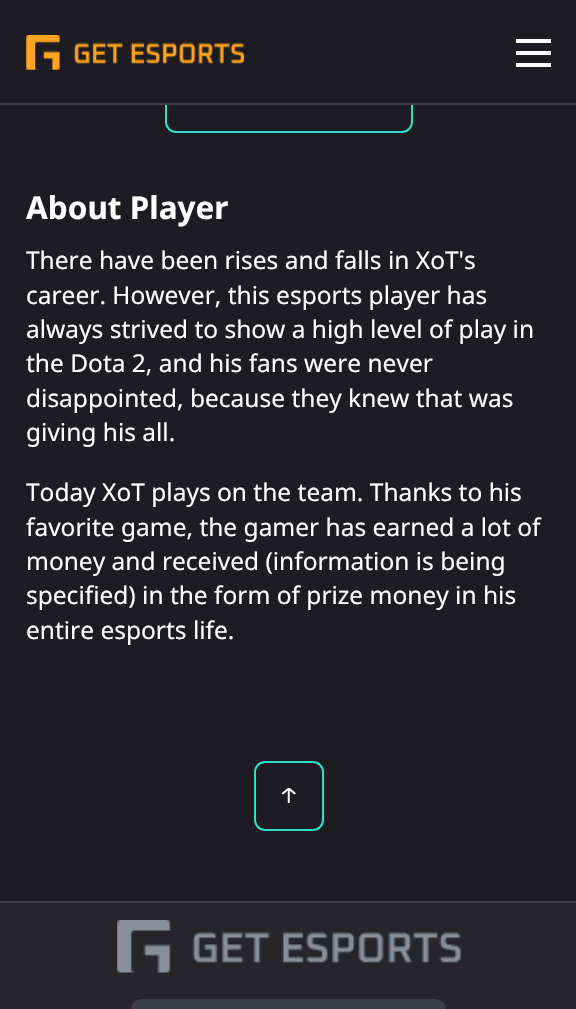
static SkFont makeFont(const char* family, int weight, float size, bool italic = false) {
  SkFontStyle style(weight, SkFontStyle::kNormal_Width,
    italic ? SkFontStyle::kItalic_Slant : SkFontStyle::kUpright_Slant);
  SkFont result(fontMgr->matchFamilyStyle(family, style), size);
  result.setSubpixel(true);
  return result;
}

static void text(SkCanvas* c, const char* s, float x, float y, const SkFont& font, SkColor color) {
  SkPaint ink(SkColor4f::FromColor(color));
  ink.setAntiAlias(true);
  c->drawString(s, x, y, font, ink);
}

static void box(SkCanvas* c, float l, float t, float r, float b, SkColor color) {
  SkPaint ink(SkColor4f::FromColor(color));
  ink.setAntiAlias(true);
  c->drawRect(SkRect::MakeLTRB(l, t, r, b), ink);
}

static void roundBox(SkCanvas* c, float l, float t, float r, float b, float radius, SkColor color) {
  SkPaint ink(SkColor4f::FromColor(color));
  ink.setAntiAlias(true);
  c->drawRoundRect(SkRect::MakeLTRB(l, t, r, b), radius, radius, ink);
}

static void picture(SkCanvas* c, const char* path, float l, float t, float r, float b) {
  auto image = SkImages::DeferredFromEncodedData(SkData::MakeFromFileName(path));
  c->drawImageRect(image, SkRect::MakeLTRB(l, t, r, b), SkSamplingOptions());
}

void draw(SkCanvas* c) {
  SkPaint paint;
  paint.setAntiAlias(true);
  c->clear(0xff1c1c22);
  paint.setStyle(SkPaint::kStroke_Style);
  paint.setStrokeWidth(2);
  paint.setColor(0xff2fdfc5);
  c->drawRoundRect(SkRect::MakeLTRB(166, 73, 412, 132), 10, 10, paint);
  box(c, 165, 72, 413, 103, 0xff1c1c22);
  picture(c, "img_01.png", 26, 35, 245, 70);
  box(c, 516, 39, 551, 43, 0xffffffff);
  box(c, 516, 51, 551, 55, 0xffffffff);
  box(c, 516, 63, 551, 67, 0xffffffff);
  box(c, 0, 103, 576, 105, 0xff3a3f47);
  SkFont face1 = makeFont("Noto Sans", 700, 31.5f);
  text(c, "About Player", 26, 219, face1, 0xffffffff);
  SkFont face2 = makeFont("Noto Sans", 400, 24.5f);
  text(c, "There have been rises and falls in XoT's", 26, 269, face2, 0xffffffff);
  text(c, "career. However, this esports player has", 26, 304, face2, 0xffffffff);
  text(c, "always strived to show a high level of play in", 26, 338, face2, 0xffffffff);
  text(c, "the Dota 2, and his fans were never", 26, 372, face2, 0xffffffff);
  text(c, "disappointed, because they knew that was", 26, 407, face2, 0xffffffff);
  text(c, "giving his all.", 26, 441, face2, 0xffffffff);
  text(c, "Today XoT plays on the team. Thanks to his", 26, 501, face2, 0xffffffff);
  text(c, "favorite game, the gamer has earned a lot of", 26, 536, face2, 0xffffffff);
  text(c, "money and received (information is being", 26, 570, face2, 0xffffffff);
  text(c, "specified) in the form of prize money in his", 26, 604, face2, 0xffffffff);
  text(c, "entire esports life.", 26, 639, face2, 0xffffffff);
  c->drawRoundRect(SkRect::MakeLTRB(255, 762, 323, 830), 10, 10, paint);
  picture(c, "img_02.png", 281, 788, 296, 803);
  box(c, 0, 903, 576, 1009, 0xff25252b);
  box(c, 0, 901, 576, 903, 0xff3a3f47);
  picture(c, "img_03.png", 117, 920, 462, 973);
  roundBox(c, 131, 999, 446, 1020, 11, 0xff3a3f47);
}
